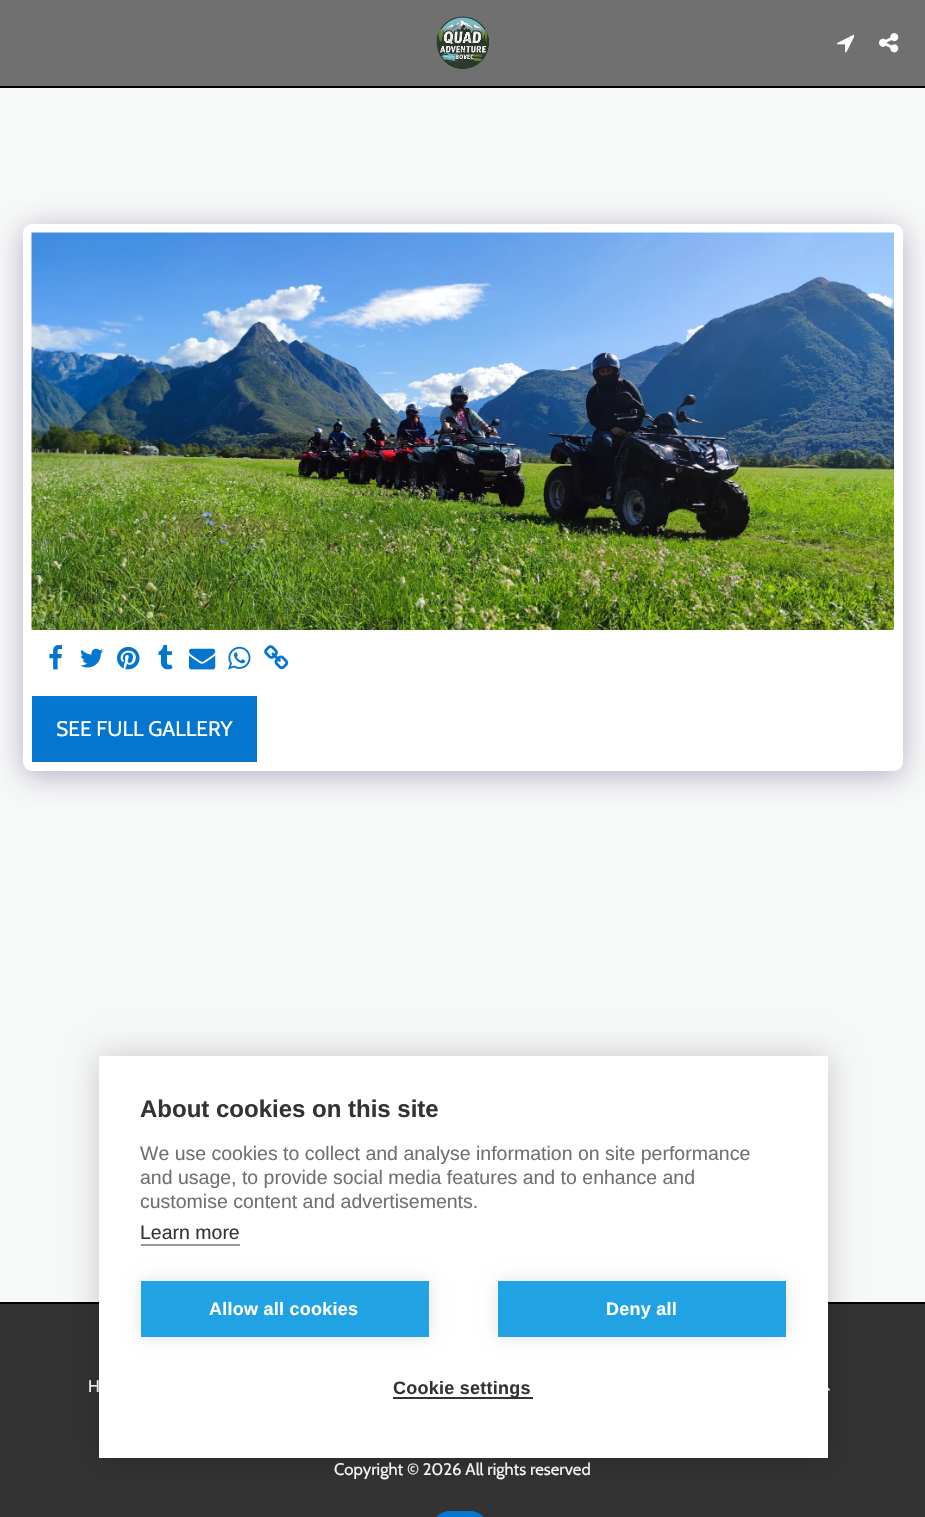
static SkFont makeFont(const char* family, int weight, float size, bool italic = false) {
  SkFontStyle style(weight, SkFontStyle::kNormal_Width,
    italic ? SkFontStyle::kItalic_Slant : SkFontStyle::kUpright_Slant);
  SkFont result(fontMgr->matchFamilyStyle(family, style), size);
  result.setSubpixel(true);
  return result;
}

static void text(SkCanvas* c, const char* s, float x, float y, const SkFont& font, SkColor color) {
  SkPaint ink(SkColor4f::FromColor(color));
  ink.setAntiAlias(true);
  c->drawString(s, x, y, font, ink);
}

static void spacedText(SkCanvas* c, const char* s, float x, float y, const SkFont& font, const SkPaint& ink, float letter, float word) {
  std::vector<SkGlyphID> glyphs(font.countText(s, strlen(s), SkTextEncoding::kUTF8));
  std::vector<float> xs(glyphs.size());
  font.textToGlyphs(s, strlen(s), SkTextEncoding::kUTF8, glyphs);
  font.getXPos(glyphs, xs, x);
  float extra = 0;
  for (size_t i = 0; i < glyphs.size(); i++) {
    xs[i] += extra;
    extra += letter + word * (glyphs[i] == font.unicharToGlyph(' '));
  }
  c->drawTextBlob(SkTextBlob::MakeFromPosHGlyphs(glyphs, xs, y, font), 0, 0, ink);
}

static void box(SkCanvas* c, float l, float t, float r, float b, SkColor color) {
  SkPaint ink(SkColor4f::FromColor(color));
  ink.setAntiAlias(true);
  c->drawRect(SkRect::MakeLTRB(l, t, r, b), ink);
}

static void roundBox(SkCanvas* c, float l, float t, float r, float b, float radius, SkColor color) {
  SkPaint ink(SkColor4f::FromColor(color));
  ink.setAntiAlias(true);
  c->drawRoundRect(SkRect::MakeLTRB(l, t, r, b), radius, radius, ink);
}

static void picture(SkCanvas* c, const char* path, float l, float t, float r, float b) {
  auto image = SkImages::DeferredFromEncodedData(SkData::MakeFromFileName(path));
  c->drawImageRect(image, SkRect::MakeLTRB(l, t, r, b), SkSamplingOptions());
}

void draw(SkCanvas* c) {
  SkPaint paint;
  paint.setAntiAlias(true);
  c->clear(0xfff7f9f8);
  box(c, 0, 0, 925, 86, 0xff707070);
  box(c, 0, 86, 925, 88, 0xff000000);
  picture(c, "img_01.png", 436, 16, 489, 69);
  picture(c, "img_02.png", 837, 34, 854, 53);
  picture(c, "img_03.png", 879, 33, 899, 53);
  paint.setColor(0x664d3f7a);
  paint.setMaskFilter(SkMaskFilter::MakeBlur(kNormal_SkBlurStyle, 15));
  c->drawRoundRect(SkRect::MakeLTRB(23, 228, 903, 776), 9, 9, paint);
  paint.setMaskFilter(nullptr);
  roundBox(c, 23, 224, 903, 771, 9, 0xffffffff);
  picture(c, "img_04.png", 31, 232, 894, 630);
  picture(c, "img_05.png", 49, 645, 63, 670);
  picture(c, "img_06.png", 80, 648, 104, 668);
  picture(c, "img_07.png", 117, 646, 140, 670);
  picture(c, "img_08.png", 158, 645, 173, 670);
  picture(c, "img_09.png", 189, 648, 216, 670);
  picture(c, "img_10.png", 228, 646, 251, 670);
  picture(c, "img_11.png", 264, 645, 288, 670);
  box(c, 32, 696, 257, 762, 0xff0476d0);
  SkFont face1 = makeFont("Cabin", 400, 21);
  text(c, "SEE FULL GALLERY", 56, 736, face1, 0xffffffff);
  box(c, 0, 1304, 925, 1517, 0xff333333);
  box(c, 0, 1302, 925, 1304, 0xff000000);
  SkFont face2 = makeFont("Cabin", 400, 16.75f);
  paint.setColor(0xffffffff);
  spacedText(c, "H", 88, 1392, face2, paint, 1, 0);
  picture(c, "img_12.png", 828, 1387, 830, 1391);
  text(c, "Copyright © 2026 All rights reserved", 334, 1475, face2, 0xffffffff);
  paint.setColor(0xff0476d0);
  c->drawRoundRect(SkRect::MakeLTRB(433, 1512, 487, 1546), 26.5f, 26.5f, paint);
  paint.setStyle(SkPaint::kStroke_Style);
  paint.setStrokeWidth(2);
  c->drawRoundRect(SkRect::MakeLTRB(433, 1512, 487, 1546), 26.5f, 26.5f, paint);
  paint.setStyle(SkPaint::kFill_Style);
  paint.setColor(0x33000000);
  paint.setMaskFilter(SkMaskFilter::MakeBlur(kNormal_SkBlurStyle, 15));
  c->drawRect(SkRect::MakeLTRB(99, 1056, 828, 1458), paint);
  paint.setMaskFilter(nullptr);
  box(c, 99, 1056, 828, 1458, 0xffffffff);
  SkFont face3 = makeFont("Liberation Sans", 700, 24);
  text(c, "About cookies on this site", 140, 1117, face3, 0xff333333);
  SkFont face4 = makeFont("Liberation Sans", 400, 19.5f);
  text(c, "We use cookies to collect and analyse information on site performance", 140, 1160, face4, 0xff707070);
  text(c, "and usage, to provide social media features and to enhance and", 140, 1184, face4, 0xff707070);
  text(c, "customise content and advertisements.", 140, 1208, face4, 0xff707070);
  text(c, "Learn more", 140, 1239, face4, 0xff333333);
  box(c, 141, 1244, 240, 1246, 0xff999999);
  paint.setColor(0x1f000000);
  paint.setMaskFilter(SkMaskFilter::MakeBlur(kNormal_SkBlurStyle, 7.5f));
  c->drawRect(SkRect::MakeLTRB(141, 1281, 429, 1337), paint);
  paint.setMaskFilter(nullptr);
  box(c, 141, 1281, 429, 1337, 0xff20a2e3);
  SkFont face5 = makeFont("Liberation Sans", 700, 18);
  paint.setColor(0xffffffff);
  spacedText(c, "Allow all cookies", 209, 1315, face5, paint, 0.25f, 0);
  paint.setColor(0x1f000000);
  paint.setMaskFilter(SkMaskFilter::MakeBlur(kNormal_SkBlurStyle, 7.5f));
  c->drawRect(SkRect::MakeLTRB(498, 1281, 786, 1337), paint);
  paint.setMaskFilter(nullptr);
  box(c, 498, 1281, 786, 1337, 0xff20a2e3);
  paint.setColor(0xffffffff);
  spacedText(c, "Deny all", 606, 1315, face5, paint, 0.25f, 0);
  box(c, 393, 1397, 533, 1399, 0xff333333);
  paint.setColor(0xff333333);
  spacedText(c, "Cookie settings", 393, 1394, face5, paint, 0.25f, 0);
}
